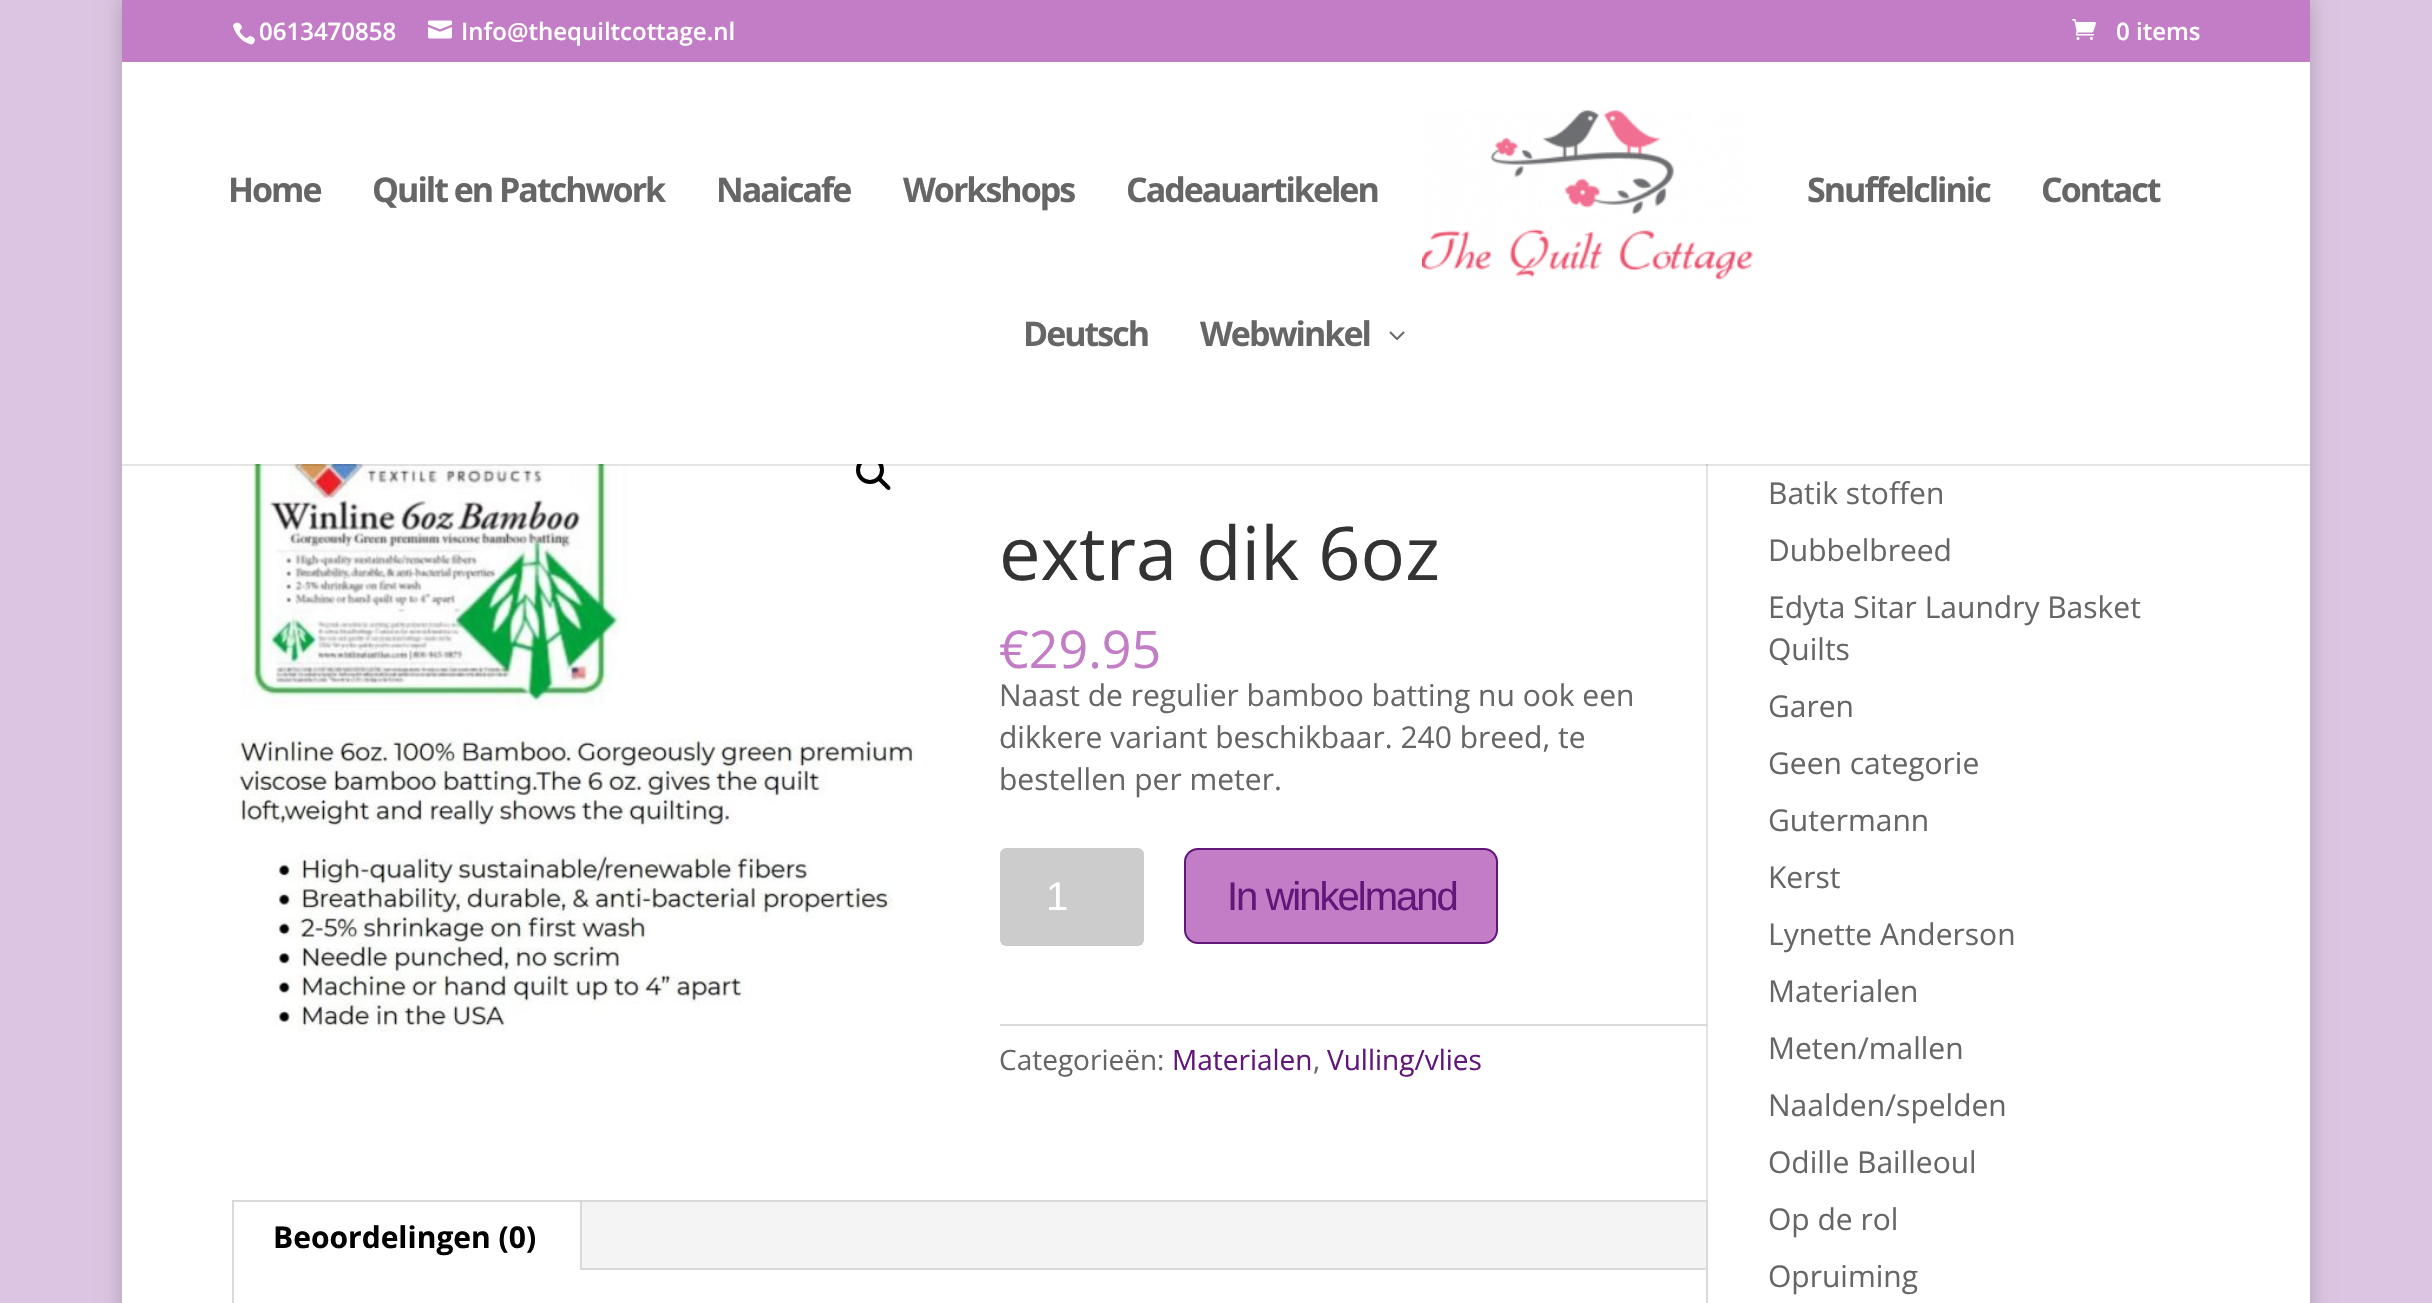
static SkFont makeFont(const char* family, int weight, float size, bool italic = false) {
  SkFontStyle style(weight, SkFontStyle::kNormal_Width,
    italic ? SkFontStyle::kItalic_Slant : SkFontStyle::kUpright_Slant);
  SkFont result(fontMgr->matchFamilyStyle(family, style), size);
  result.setSubpixel(true);
  return result;
}

static void text(SkCanvas* c, const char* s, float x, float y, const SkFont& font, SkColor color) {
  SkPaint ink(SkColor4f::FromColor(color));
  ink.setAntiAlias(true);
  c->drawString(s, x, y, font, ink);
}

static void spacedText(SkCanvas* c, const char* s, float x, float y, const SkFont& font, const SkPaint& ink, float letter, float word) {
  std::vector<SkGlyphID> glyphs(font.countText(s, strlen(s), SkTextEncoding::kUTF8));
  std::vector<float> xs(glyphs.size());
  font.textToGlyphs(s, strlen(s), SkTextEncoding::kUTF8, glyphs);
  font.getXPos(glyphs, xs, x);
  float extra = 0;
  for (size_t i = 0; i < glyphs.size(); i++) {
    xs[i] += extra;
    extra += letter + word * (glyphs[i] == font.unicharToGlyph(' '));
  }
  c->drawTextBlob(SkTextBlob::MakeFromPosHGlyphs(glyphs, xs, y, font), 0, 0, ink);
}

static void box(SkCanvas* c, float l, float t, float r, float b, SkColor color) {
  SkPaint ink(SkColor4f::FromColor(color));
  ink.setAntiAlias(true);
  c->drawRect(SkRect::MakeLTRB(l, t, r, b), ink);
}

static void roundBox(SkCanvas* c, float l, float t, float r, float b, float radius, SkColor color) {
  SkPaint ink(SkColor4f::FromColor(color));
  ink.setAntiAlias(true);
  c->drawRoundRect(SkRect::MakeLTRB(l, t, r, b), radius, radius, ink);
}

static void picture(SkCanvas* c, const char* path, float l, float t, float r, float b) {
  auto image = SkImages::DeferredFromEncodedData(SkData::MakeFromFileName(path));
  c->drawImageRect(image, SkRect::MakeLTRB(l, t, r, b), SkSamplingOptions());
}

void draw(SkCanvas* c) {
  SkPaint paint;
  paint.setAntiAlias(true);
  c->clear(0xffdbc5e2);
  paint.setColor(0x33000000);
  paint.setMaskFilter(SkMaskFilter::MakeBlur(kNormal_SkBlurStyle, 10));
  c->drawRect(SkRect::MakeLTRB(122, 0, 2310, 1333), paint);
  paint.setMaskFilter(nullptr);
  box(c, 122, 0, 2310, 62, 0xffc37cc6);
  picture(c, "img_01.png", 233, 22, 255, 45);
  SkFont face1 = makeFont("Open Sans", 600, 24);
  text(c, "0613470858", 259, 40, face1, 0xffffffff);
  picture(c, "img_02.png", 428, 20, 452, 39);
  text(c, "Info@thequiltcottage.nl", 461, 40, face1, 0xffffffff);
  picture(c, "img_03.png", 2072, 19, 2096, 40);
  text(c, "0 items", 2116, 40, face1, 0xffffffff);
  box(c, 122, 464, 2310, 1303, 0xffffffff);
  box(c, 1706, 464, 1708, 1200, 0xffe2e2e2);
  picture(c, "img_06.png", 232, 464, 916, 1032);
  paint.setStyle(SkPaint::kStroke_Style);
  paint.setStrokeWidth(4);
  paint.setColor(0xff000000);
  c->drawCircle(870, 470, 12, paint);
  box(c, 122, 464, 2310, 466, 0x1a000000);
  box(c, 122, 62, 2310, 464, 0xffffffff);
  SkFont face2 = makeFont("Open Sans", 700, 34);
  paint.setStyle(SkPaint::kFill_Style);
  paint.setColor(0xff666666);
  spacedText(c, "Home", 228, 202, face2, paint, -2, 0);
  spacedText(c, "Quilt en Patchwork", 372, 202, face2, paint, -2, 0);
  spacedText(c, "Naaicafe", 716, 202, face2, paint, -2, 0);
  spacedText(c, "Workshops", 903, 202, face2, paint, -2, 0);
  spacedText(c, "Cadeauartikelen", 1126, 202, face2, paint, -2, 0);
  picture(c, "img_04.png", 1422, 109, 1753, 280);
  spacedText(c, "Snuffelclinic", 1807, 202, face2, paint, -2, 0);
  spacedText(c, "Contact", 2041, 202, face2, paint, -2, 0);
  spacedText(c, "Deutsch", 1023, 346, face2, paint, -2, 0);
  spacedText(c, "Webwinkel", 1200, 346, face2, paint, -2, 0);
  picture(c, "img_05.png", 1389, 331, 1405, 340);
  paint.setColor(0xff000000);
  c->drawPath(SkPathBuilder().moveTo(878.5f, 478).cubicTo(879.5f, 477, 880.5f, 477, 881.5f, 478).lineTo(890, 486.5f).cubicTo(890.5f, 487, 890.5f, 488.5f, 890, 489.5f).cubicTo(889, 490, 888, 490, 887, 489.5f).lineTo(878.5f, 481).cubicTo(877.5f, 480, 877.5f, 478.5f, 878.5f, 478).close().detach(), paint);
  SkFont face3 = makeFont("Open Sans", 400, 74);
  text(c, "extra dik 6oz", 999, 580, face3, 0xff333333);
  SkFont face4 = makeFont("Open Sans", 400, 52);
  text(c, "€29.95", 999, 668, face4, 0xffc37cc6);
  SkFont face5 = makeFont("Open Sans", 400, 30);
  text(c, "Naast de regulier bamboo batting nu ook een", 999, 706, face5, 0xff666666);
  text(c, "dikkere variant beschikbaar. 240 breed, te", 999, 748, face5, 0xff666666);
  text(c, "bestellen per meter.", 999, 790, face5, 0xff666666);
  roundBox(c, 1000, 848, 1144, 946, 6, 0xffcccccc);
  SkFont face6 = makeFont("Liberation Sans", 400, 40);
  text(c, "1", 1046, 910, face6, 0xffffffff);
  paint.setColor(0xffc37cc6);
  c->drawRoundRect(SkRect::MakeLTRB(1185, 849, 1497, 943), 13, 13, paint);
  paint.setStyle(SkPaint::kStroke_Style);
  paint.setStrokeWidth(2);
  paint.setColor(0xff61177a);
  c->drawRoundRect(SkRect::MakeLTRB(1185, 849, 1497, 943), 13, 13, paint);
  paint.setStyle(SkPaint::kFill_Style);
  spacedText(c, "In winkelmand", 1227, 910, face6, paint, -2, 0);
  box(c, 1000, 1024, 1708, 1026, 0xffdadada);
  SkFont face7 = makeFont("Open Sans", 400, 28);
  text(c, "Categorieën:", 999, 1070, face7, 0xff666666);
  text(c, "Materialen", 1172, 1070, face7, 0xff61177a);
  text(c, ",", 1313, 1070, face7, 0xff666666);
  text(c, "Vulling/vlies", 1327, 1070, face7, 0xff61177a);
  paint.setStyle(SkPaint::kStroke_Style);
  paint.setColor(0xffd9d9d9);
  c->drawRect(SkRect::MakeLTRB(233, 1201, 1707, 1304), paint);
  box(c, 582, 1202, 1706, 1268, 0xfff4f4f4);
  box(c, 580, 1202, 582, 1270, 0xffd9d9d9);
  SkFont face8 = makeFont("Open Sans", 700, 30);
  text(c, "Beoordelingen (0)", 273, 1248, face8, 0xff000000);
  box(c, 582, 1268, 1706, 1270, 0xffd9d9d9);
  text(c, "Batik stoffen", 1768, 504, face5, 0xff666666);
  text(c, "Dubbelbreed", 1768, 561, face5, 0xff666666);
  text(c, "Edyta Sitar Laundry Basket", 1768, 618, face5, 0xff666666);
  text(c, "Quilts", 1768, 660, face5, 0xff666666);
  text(c, "Garen", 1768, 717, face5, 0xff666666);
  text(c, "Geen categorie", 1768, 774, face5, 0xff666666);
  text(c, "Gutermann", 1768, 831, face5, 0xff666666);
  text(c, "Kerst", 1768, 888, face5, 0xff666666);
  text(c, "Lynette Anderson", 1768, 945, face5, 0xff666666);
  text(c, "Materialen", 1768, 1002, face5, 0xff666666);
  text(c, "Meten/mallen", 1768, 1059, face5, 0xff666666);
  text(c, "Naalden/spelden", 1768, 1116, face5, 0xff666666);
  text(c, "Odille Bailleoul", 1768, 1173, face5, 0xff666666);
  text(c, "Op de rol", 1768, 1230, face5, 0xff666666);
  text(c, "Opruiming", 1768, 1287, face5, 0xff666666);
}
